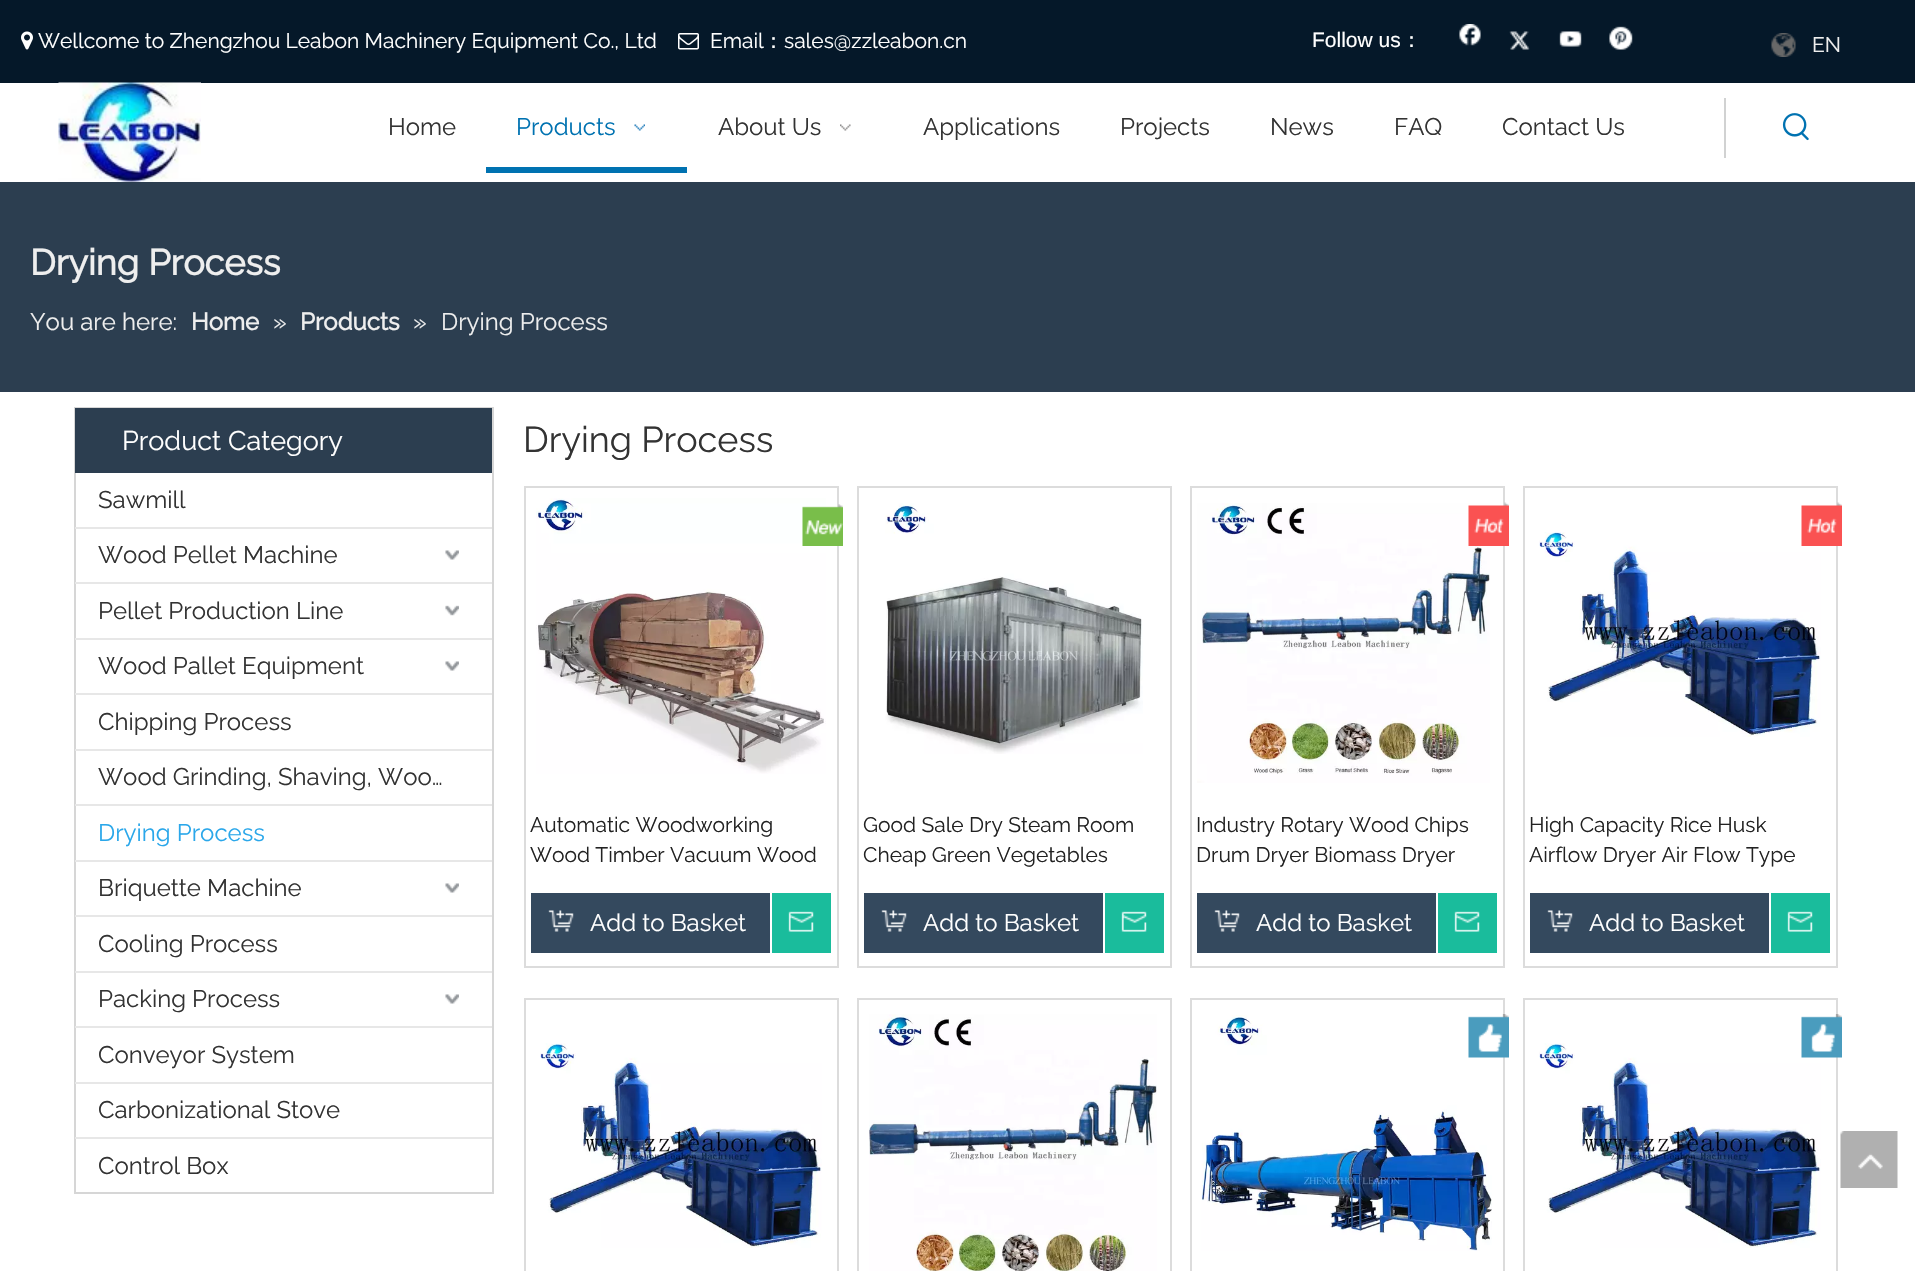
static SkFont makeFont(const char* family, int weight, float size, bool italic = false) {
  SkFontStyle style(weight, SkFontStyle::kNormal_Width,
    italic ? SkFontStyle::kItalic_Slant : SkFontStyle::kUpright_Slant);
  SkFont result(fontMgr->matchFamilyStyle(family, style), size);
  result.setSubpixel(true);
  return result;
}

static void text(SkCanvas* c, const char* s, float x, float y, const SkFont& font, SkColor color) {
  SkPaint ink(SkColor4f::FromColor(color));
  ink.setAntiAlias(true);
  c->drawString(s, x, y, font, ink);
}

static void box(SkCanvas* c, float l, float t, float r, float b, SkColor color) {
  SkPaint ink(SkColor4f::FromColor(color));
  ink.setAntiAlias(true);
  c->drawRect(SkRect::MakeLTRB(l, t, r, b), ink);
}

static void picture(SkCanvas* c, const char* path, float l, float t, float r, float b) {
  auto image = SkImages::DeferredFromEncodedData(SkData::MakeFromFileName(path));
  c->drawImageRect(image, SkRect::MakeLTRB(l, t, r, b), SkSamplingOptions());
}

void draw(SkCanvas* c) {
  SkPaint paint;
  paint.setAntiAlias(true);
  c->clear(0xffffffff);
  box(c, 0, 0, 1915, 83, 0xff051829);
  picture(c, "img_01.png", 21, 31, 33, 50);
  SkFont face1 = makeFont("Raleway", 100, 21);
  text(c, "Wellcome to Zhengzhou Leabon Machinery Equipment Co., Ltd", 38, 48, face1, 0xffffffff);
  picture(c, "img_02.png", 678, 33, 699, 50);
  text(c, "Email", 710, 48, face1, 0xffffffff);
  SkFont face2 = makeFont("WenQuanYi Zen Hei", 500, 21);
  text(c, "：", 763, 48, face2, 0xffffffff);
  text(c, "sales@zzleabon.cn", 784, 48, face1, 0xffffffff);
  SkFont face3 = makeFont("Liberation Sans", 400, 21);
  text(c, "Follow us", 1312, 47, face3, 0xffffffff);
  text(c, "：", 1401, 47, face2, 0xffffffff);
  picture(c, "img_03.png", 1459, 24, 1481, 46);
  picture(c, "img_04.png", 1509, 31, 1530, 50);
  picture(c, "img_05.png", 1559, 31, 1582, 47);
  picture(c, "img_06.png", 1609, 26, 1633, 50);
  picture(c, "img_07.png", 1771, 33, 1796, 57);
  text(c, "EN", 1812, 52, face1, 0xffeeeeee);
  picture(c, "img_08.png", 58, 82, 201, 182);
  SkFont face4 = makeFont("Raleway", 100, 24);
  text(c, "Home", 388, 135, face4, 0xff333333);
  box(c, 486, 167, 687, 173, 0xff0072b1);
  text(c, "Products", 516, 135, face4, 0xff0072b1);
  picture(c, "img_09.png", 634, 124, 645, 131);
  text(c, "About Us", 718, 135, face4, 0xff333333);
  picture(c, "img_10.png", 840, 124, 851, 131);
  text(c, "Applications", 923, 135, face4, 0xff333333);
  text(c, "Projects", 1120, 135, face4, 0xff333333);
  text(c, "News", 1270, 135, face4, 0xff333333);
  text(c, "FAQ", 1394, 135, face4, 0xff333333);
  text(c, "Contact Us", 1502, 135, face4, 0xff333333);
  box(c, 1724, 98, 1726, 158, 0xffd1d2d2);
  picture(c, "img_11.png", 1782, 113, 1809, 141);
  box(c, 0, 182, 1915, 392, 0xff2c3e50);
  SkFont face5 = makeFont("Raleway", 700, 36);
  text(c, "Drying Process", 30, 275, face5, 0xffeeeeee);
  text(c, "You are here:", 30, 330, face4, 0xffeeeeee);
  SkFont face6 = makeFont("Raleway", 700, 24);
  text(c, "Home", 191, 330, face6, 0xffeeeeee);
  text(c, "»", 273, 330, face4, 0xffeeeeee);
  text(c, "Products", 300, 330, face6, 0xffeeeeee);
  text(c, "»", 413, 330, face4, 0xffeeeeee);
  text(c, "Drying Process", 441, 330, face4, 0xffeeeeee);
  paint.setStyle(SkPaint::kStroke_Style);
  paint.setStrokeWidth(2);
  paint.setColor(0xffd6d6d6);
  c->drawRect(SkRect::MakeLTRB(75, 408, 493, 1193), paint);
  box(c, 75, 408, 492, 473, 0xff2c3e50);
  SkFont face7 = makeFont("Raleway", 100, 27);
  text(c, "Product Category", 122, 450, face7, 0xffffffff);
  text(c, "Sawmill", 98, 508, face4, 0xff333333);
  box(c, 75, 527, 492, 529, 0xffe7e7e7);
  text(c, "Wood Pellet Machine", 98, 563, face4, 0xff333333);
  picture(c, "img_12.png", 445, 550, 459, 560);
  box(c, 75, 582, 492, 584, 0xffe7e7e7);
  text(c, "Pellet Production Line", 98, 619, face4, 0xff333333);
  picture(c, "img_13.png", 445, 605, 459, 616);
  box(c, 75, 638, 492, 640, 0xffe7e7e7);
  text(c, "Wood Pallet Equipment", 98, 674, face4, 0xff333333);
  picture(c, "img_12.png", 445, 661, 459, 671);
  box(c, 75, 693, 492, 695, 0xffe7e7e7);
  text(c, "Chipping Process", 98, 730, face4, 0xff333333);
  box(c, 75, 749, 492, 751, 0xffe7e7e7);
  text(c, "Wood Grinding, Shaving, Woo…", 98, 785, face4, 0xff333333);
  box(c, 75, 804, 492, 806, 0xffe7e7e7);
  text(c, "Drying Process", 98, 841, face4, 0xff2aa7ea);
  box(c, 75, 860, 492, 862, 0xffe7e7e7);
  text(c, "Briquette Machine", 98, 896, face4, 0xff333333);
  picture(c, "img_12.png", 445, 883, 459, 893);
  box(c, 75, 915, 492, 917, 0xffe7e7e7);
  text(c, "Cooling Process", 98, 952, face4, 0xff333333);
  box(c, 75, 971, 492, 973, 0xffe7e7e7);
  text(c, "Packing Process", 98, 1007, face4, 0xff333333);
  picture(c, "img_12.png", 445, 994, 459, 1004);
  box(c, 75, 1026, 492, 1028, 0xffe7e7e7);
  text(c, "Conveyor System", 98, 1063, face4, 0xff333333);
  box(c, 75, 1082, 492, 1084, 0xffe7e7e7);
  text(c, "Carbonizational Stove", 98, 1118, face4, 0xff333333);
  box(c, 75, 1137, 492, 1139, 0xffe7e7e7);
  text(c, "Control Box", 98, 1174, face4, 0xff333333);
  SkFont face8 = makeFont("Raleway", 100, 36);
  text(c, "Drying Process", 523, 452, face8, 0xff333333);
  paint.setColor(0xffdcdcdc);
  c->drawRect(SkRect::MakeLTRB(525, 487, 838, 967), paint);
  picture(c, "img_14.png", 536, 498, 826, 774);
  picture(c, "img_15.png", 802, 504, 843, 546);
  text(c, "Automatic Woodworking", 530, 832, face1, 0xff222222);
  text(c, "Wood Timber Vacuum Wood", 530, 862, face1, 0xff222222);
  box(c, 531, 893, 770, 953, 0xff34495e);
  picture(c, "img_16.png", 548, 910, 574, 932);
  text(c, "Add to Basket", 590, 931, face4, 0xffffffff);
  box(c, 772, 893, 831, 953, 0xff1abc9c);
  picture(c, "img_17.png", 788, 911, 814, 932);
  c->drawRect(SkRect::MakeLTRB(858, 487, 1171, 967), paint);
  picture(c, "img_18.png", 885, 503, 1143, 754);
  text(c, "Good Sale Dry Steam Room", 863, 832, face1, 0xff222222);
  text(c, "Cheap Green Vegetables", 863, 862, face1, 0xff222222);
  box(c, 864, 893, 1103, 953, 0xff34495e);
  picture(c, "img_16.png", 881, 910, 907, 932);
  text(c, "Add to Basket", 923, 931, face4, 0xffffffff);
  box(c, 1105, 893, 1164, 953, 0xff1abc9c);
  picture(c, "img_19.png", 1121, 911, 1147, 932);
  c->drawRect(SkRect::MakeLTRB(1191, 487, 1504, 967), paint);
  picture(c, "img_21.png", 1197, 503, 1490, 783);
  picture(c, "img_20.png", 1468, 502, 1509, 546);
  text(c, "Industry Rotary Wood Chips", 1196, 832, face1, 0xff222222);
  text(c, "Drum Dryer Biomass Dryer", 1196, 862, face1, 0xff222222);
  box(c, 1197, 893, 1436, 953, 0xff34495e);
  picture(c, "img_22.png", 1214, 910, 1240, 932);
  text(c, "Add to Basket", 1256, 931, face4, 0xffffffff);
  box(c, 1438, 893, 1497, 953, 0xff1abc9c);
  picture(c, "img_17.png", 1454, 911, 1480, 932);
  c->drawRect(SkRect::MakeLTRB(1524, 487, 1837, 967), paint);
  picture(c, "img_24.png", 1539, 532, 1821, 737);
  picture(c, "img_23.png", 1801, 502, 1842, 546);
  text(c, "High Capacity Rice Husk", 1529, 832, face1, 0xff222222);
  text(c, "Airflow Dryer Air Flow Type", 1529, 862, face1, 0xff222222);
  box(c, 1530, 893, 1769, 953, 0xff34495e);
  picture(c, "img_16.png", 1547, 910, 1573, 932);
  text(c, "Add to Basket", 1589, 931, face4, 0xffffffff);
  box(c, 1771, 893, 1830, 953, 0xff1abc9c);
  picture(c, "img_17.png", 1787, 911, 1813, 932);
  c->drawRect(SkRect::MakeLTRB(525, 999, 838, 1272), paint);
  picture(c, "img_25.png", 540, 1043, 822, 1248);
  c->drawRect(SkRect::MakeLTRB(858, 999, 1171, 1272), paint);
  picture(c, "img_26.png", 869, 1014, 1157, 1271);
  c->drawRect(SkRect::MakeLTRB(1191, 999, 1504, 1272), paint);
  picture(c, "img_28.png", 1201, 1015, 1492, 1251);
  picture(c, "img_27.png", 1468, 1014, 1509, 1058);
  c->drawRect(SkRect::MakeLTRB(1524, 999, 1837, 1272), paint);
  picture(c, "img_30.png", 1539, 1043, 1821, 1248);
  picture(c, "img_29.png", 1801, 1014, 1842, 1058);
  picture(c, "img_31.png", 1840, 1131, 1898, 1188);
}
